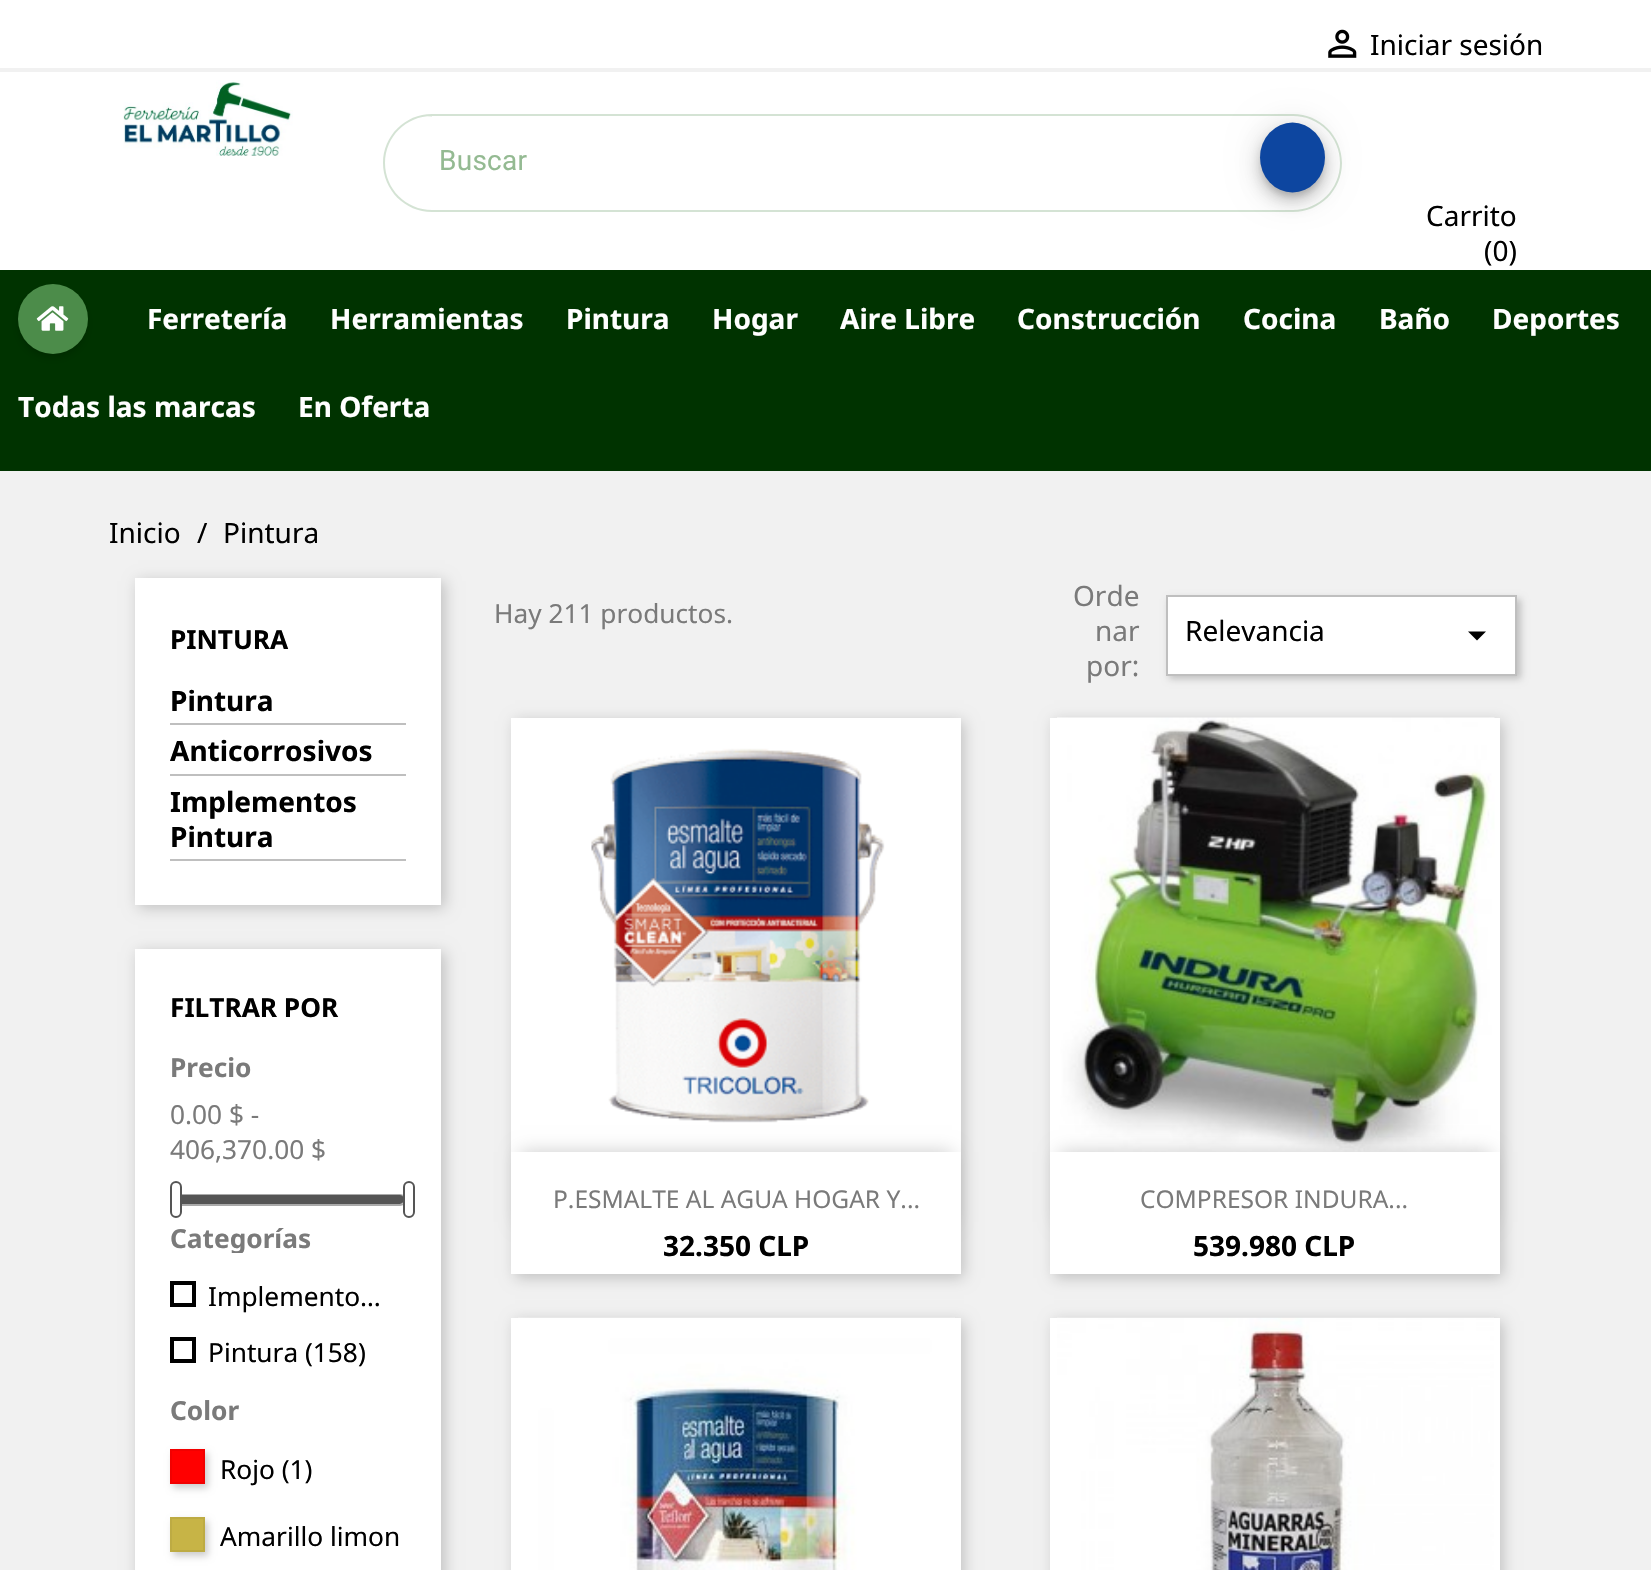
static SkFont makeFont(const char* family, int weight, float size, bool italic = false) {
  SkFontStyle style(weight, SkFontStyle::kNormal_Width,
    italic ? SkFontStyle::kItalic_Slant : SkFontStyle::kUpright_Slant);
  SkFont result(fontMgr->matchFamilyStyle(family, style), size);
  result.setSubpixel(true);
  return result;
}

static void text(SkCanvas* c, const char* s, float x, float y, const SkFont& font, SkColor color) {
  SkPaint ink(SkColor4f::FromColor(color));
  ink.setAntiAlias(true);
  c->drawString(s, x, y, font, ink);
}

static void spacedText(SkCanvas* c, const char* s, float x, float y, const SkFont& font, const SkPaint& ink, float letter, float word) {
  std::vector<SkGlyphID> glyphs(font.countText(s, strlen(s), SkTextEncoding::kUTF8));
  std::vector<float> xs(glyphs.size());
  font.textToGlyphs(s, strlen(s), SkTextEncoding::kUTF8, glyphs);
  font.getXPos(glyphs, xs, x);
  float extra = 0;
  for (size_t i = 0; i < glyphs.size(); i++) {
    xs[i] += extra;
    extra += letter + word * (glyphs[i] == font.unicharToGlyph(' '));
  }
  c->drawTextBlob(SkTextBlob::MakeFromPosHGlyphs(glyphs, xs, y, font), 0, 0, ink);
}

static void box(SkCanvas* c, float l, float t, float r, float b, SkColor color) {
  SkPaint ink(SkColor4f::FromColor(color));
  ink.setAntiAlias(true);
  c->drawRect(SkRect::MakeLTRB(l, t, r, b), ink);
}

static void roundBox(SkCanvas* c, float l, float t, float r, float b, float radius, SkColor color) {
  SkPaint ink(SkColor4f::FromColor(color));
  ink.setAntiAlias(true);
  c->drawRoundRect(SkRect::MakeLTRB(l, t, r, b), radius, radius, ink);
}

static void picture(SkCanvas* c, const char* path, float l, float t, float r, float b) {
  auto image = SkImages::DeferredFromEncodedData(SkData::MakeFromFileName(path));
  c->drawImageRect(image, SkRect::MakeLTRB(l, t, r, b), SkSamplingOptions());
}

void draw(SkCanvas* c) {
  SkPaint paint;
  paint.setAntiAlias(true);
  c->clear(0xffffffff);
  box(c, 0, 68, 1651, 72, 0xfff1f1f1);
  picture(c, "img_01.png", 1328, 29, 1357, 58);
  SkFont face1 = makeFont("Noto Sans", 400, 28);
  text(c, "Iniciar sesión", 1370, 55, face1, 0xff000000);
  picture(c, "img_02.png", 123, 80, 293, 156);
  paint.setColor(0xffd4e3d4);
  c->drawPath(SkPathBuilder(SkPathFillType::kEvenOdd).moveTo(432, 114).lineTo(432, 212).cubicTo(405, 212, 383, 190, 383, 163).cubicTo(383, 136, 405, 114, 432, 114).close().moveTo(432, 116).lineTo(432, 210).cubicTo(406, 210, 385, 189, 385, 163).cubicTo(385, 137, 406, 116, 432, 116).close().detach(), paint);
  paint.setColor(0x1f000000);
  paint.setMaskFilter(SkMaskFilter::MakeBlur(kNormal_SkBlurStyle, 16));
  c->drawRoundRect(SkRect::MakeLTRB(1260, 124, 1325, 194), 32.5f, 32.5f, paint);
  paint.setMaskFilter(nullptr);
  paint.setColor(0x24000000);
  paint.setMaskFilter(SkMaskFilter::MakeBlur(kNormal_SkBlurStyle, 9));
  c->drawRoundRect(SkRect::MakeLTRB(1260, 133, 1325, 203), 32.5f, 32.5f, paint);
  paint.setMaskFilter(nullptr);
  paint.setColor(0x33000000);
  paint.setMaskFilter(SkMaskFilter::MakeBlur(kNormal_SkBlurStyle, 4.5f));
  c->drawRoundRect(SkRect::MakeLTRB(1262, 130, 1323, 196), 30.5f, 30.5f, paint);
  paint.setMaskFilter(nullptr);
  paint.setColor(0xff0d46a0);
  c->drawOval(SkRect::MakeLTRB(1260, 122.5f, 1325, 192.5f), paint);
  paint.setColor(0x3d4c8c4a);
  c->drawPath(SkPathBuilder(SkPathFillType::kEvenOdd).moveTo(432, 114).lineTo(1293, 114).cubicTo(1320, 114, 1342, 136, 1342, 163).cubicTo(1342, 190, 1320, 212, 1293, 212).lineTo(432, 212).close().moveTo(432, 116).lineTo(1293, 116).cubicTo(1319, 116, 1340, 137, 1340, 163).cubicTo(1340, 189, 1319, 210, 1293, 210).lineTo(432, 210).close().detach(), paint);
  SkFont face2 = makeFont("Roboto", 400, 28);
  paint.setColor(0xff94ba92);
  spacedText(c, "Buscar", 439, 170, face2, paint, 0.25f, 0);
  text(c, "Carrito", 1426, 226, face1, 0xff000000);
  text(c, "(0)", 1484, 261, face1, 0xff000000);
  box(c, 0, 270, 1651, 471, 0xff003300);
  paint.setColor(0x33000000);
  paint.setMaskFilter(SkMaskFilter::MakeBlur(kNormal_SkBlurStyle, 4.5f));
  c->drawRoundRect(SkRect::MakeLTRB(19, 291, 86, 357), 33, 33, paint);
  paint.setMaskFilter(nullptr);
  paint.setColor(0xff4c8c4a);
  c->drawCircle(53, 319, 35, paint);
  picture(c, "img_03.png", 36, 306, 69, 331);
  SkFont face3 = makeFont("Noto Sans", 700, 28);
  text(c, "Ferretería", 147, 329, face3, 0xffffffff);
  text(c, "Herramientas", 330, 329, face3, 0xffffffff);
  text(c, "Pintura", 566, 329, face3, 0xffffffff);
  text(c, "Hogar", 712, 329, face3, 0xffffffff);
  text(c, "Aire Libre", 840, 329, face3, 0xffffffff);
  text(c, "Construcción", 1017, 329, face3, 0xffffffff);
  text(c, "Cocina", 1243, 329, face3, 0xffffffff);
  text(c, "Baño", 1379, 329, face3, 0xffffffff);
  text(c, "Deportes", 1492, 329, face3, 0xffffffff);
  text(c, "Todas las marcas", 18, 417, face3, 0xffffffff);
  text(c, "En Oferta", 298, 417, face3, 0xffffffff);
  box(c, 0, 471, 1651, 1570, 0xfff1f1f1);
  text(c, "Inicio", 109, 543, face1, 0xff000000);
  text(c, "/", 197, 543, face1, 0xff000000);
  text(c, "Pintura", 223, 543, face1, 0xff000000);
  paint.setColor(0x33000000);
  paint.setMaskFilter(SkMaskFilter::MakeBlur(kNormal_SkBlurStyle, 7));
  c->drawRect(SkRect::MakeLTRB(138, 581, 445, 908), paint);
  paint.setMaskFilter(nullptr);
  box(c, 135, 578, 441, 905, 0xffffffff);
  SkFont face4 = makeFont("Noto Sans", 700, 26.25f);
  text(c, "PINTURA", 170, 649, face4, 0xff000000);
  box(c, 170, 723, 406, 725, 0xffbfbfbf);
  text(c, "Pintura", 170, 711, face3, 0xff000000);
  box(c, 170, 774, 406, 776, 0xffbfbfbf);
  text(c, "Anticorrosivos", 170, 761, face3, 0xff000000);
  box(c, 170, 859, 406, 861, 0xffbfbfbf);
  text(c, "Implementos", 170, 812, face3, 0xff000000);
  text(c, "Pintura", 170, 847, face3, 0xff000000);
  paint.setMaskFilter(SkMaskFilter::MakeBlur(kNormal_SkBlurStyle, 7));
  c->drawRect(SkRect::MakeLTRB(138, 952, 445, 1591), paint);
  paint.setMaskFilter(nullptr);
  box(c, 135, 949, 441, 1570, 0xffffffff);
  text(c, "FILTRAR POR", 170, 1017, face4, 0xff000000);
  text(c, "Precio", 170, 1077, face4, 0xff7a7a7a);
  SkFont face5 = makeFont("Noto Sans", 400, 26.25f);
  text(c, "0.00 $ -", 170, 1124, face5, 0xff7a7a7a);
  text(c, "406,370.00 $", 170, 1159, face5, 0xff7a7a7a);
  paint.setStyle(SkPaint::kStroke_Style);
  paint.setStrokeWidth(2);
  paint.setColor(0xffaaaaaa);
  c->drawRoundRect(SkRect::MakeLTRB(171, 1195, 405, 1205), 5, 5, paint);
  roundBox(c, 172, 1195, 404, 1204, 4.5f, 0xff555555);
  paint.setStyle(SkPaint::kFill_Style);
  paint.setColor(0xffffffff);
  c->drawRoundRect(SkRect::MakeLTRB(171, 1182, 181, 1217), 5, 5, paint);
  paint.setStyle(SkPaint::kStroke_Style);
  paint.setColor(0xff555555);
  c->drawRoundRect(SkRect::MakeLTRB(171, 1182, 181, 1217), 5, 5, paint);
  paint.setStyle(SkPaint::kFill_Style);
  paint.setColor(0xffffffff);
  c->drawRoundRect(SkRect::MakeLTRB(404, 1182, 414, 1217), 5, 5, paint);
  paint.setStyle(SkPaint::kStroke_Style);
  paint.setColor(0xff555555);
  c->drawRoundRect(SkRect::MakeLTRB(404, 1182, 414, 1217), 5, 5, paint);
  c->save();
  c->clipRect(SkRect::MakeLTRB(170, 1223, 354, 1253));
  text(c, "Categorías", 170, 1248, face4, 0xff7a7a7a);
  c->restore();
  paint.setStrokeWidth(4);
  paint.setColor(0xff000000);
  c->drawRect(SkRect::MakeLTRB(172, 1283, 194, 1305), paint);
  text(c, "Implemento…", 208, 1306, face5, 0xff000000);
  c->drawRect(SkRect::MakeLTRB(172, 1339, 194, 1361), paint);
  text(c, "Pintura (158)", 208, 1362, face5, 0xff000000);
  text(c, "Color", 170, 1420, face4, 0xff7a7a7a);
  paint.setStyle(SkPaint::kFill_Style);
  paint.setColor(0x33000000);
  paint.setMaskFilter(SkMaskFilter::MakeBlur(kNormal_SkBlurStyle, 3.5f));
  c->drawRect(SkRect::MakeLTRB(173, 1453, 208, 1488), paint);
  paint.setMaskFilter(nullptr);
  paint.setColor(0xffff0000);
  c->drawRect(SkRect::MakeLTRB(171, 1450, 204, 1483), paint);
  paint.setStyle(SkPaint::kStroke_Style);
  paint.setStrokeWidth(2);
  paint.setColor(0xfff20000);
  c->drawRect(SkRect::MakeLTRB(171, 1450, 204, 1483), paint);
  text(c, "Rojo (1)", 220, 1479, face5, 0xff000000);
  paint.setStyle(SkPaint::kFill_Style);
  paint.setColor(0x33000000);
  paint.setMaskFilter(SkMaskFilter::MakeBlur(kNormal_SkBlurStyle, 3.5f));
  c->drawRect(SkRect::MakeLTRB(173, 1521, 208, 1556), paint);
  paint.setMaskFilter(nullptr);
  paint.setColor(0xffc7b446);
  c->drawRect(SkRect::MakeLTRB(171, 1518, 204, 1551), paint);
  paint.setStyle(SkPaint::kStroke_Style);
  paint.setColor(0xffbdab43);
  c->drawRect(SkRect::MakeLTRB(171, 1518, 204, 1551), paint);
  text(c, "Amarillo limon", 220, 1546, face5, 0xff000000);
  text(c, "Hay 211 productos.", 494, 623, face5, 0xff7a7a7a);
  text(c, "Orde", 1073, 606, face1, 0xff7a7a7a);
  text(c, "nar", 1095, 641, face1, 0xff7a7a7a);
  text(c, "por:", 1086, 676, face1, 0xff7a7a7a);
  paint.setStyle(SkPaint::kFill_Style);
  paint.setColor(0x33000000);
  paint.setMaskFilter(SkMaskFilter::MakeBlur(kNormal_SkBlurStyle, 3.5f));
  c->drawRect(SkRect::MakeLTRB(1169, 599, 1521, 679), paint);
  paint.setMaskFilter(nullptr);
  paint.setColor(0xffffffff);
  c->drawRect(SkRect::MakeLTRB(1167, 596, 1516, 675), paint);
  paint.setStyle(SkPaint::kStroke_Style);
  paint.setColor(0xffbfbfbf);
  c->drawRect(SkRect::MakeLTRB(1167, 596, 1516, 675), paint);
  text(c, "Relevancia", 1185, 641, face1, 0xff000000);
  paint.setStyle(SkPaint::kFill_Style);
  paint.setColor(0xff000000);
  c->drawPath(SkPathBuilder().moveTo(1468, 631.5f).lineTo(1486, 631.5f).lineTo(1477, 640.5f).close().detach(), paint);
  paint.setColor(0x33000000);
  paint.setMaskFilter(SkMaskFilter::MakeBlur(kNormal_SkBlurStyle, 7));
  c->drawRect(SkRect::MakeLTRB(515, 721, 964, 1278), paint);
  paint.setMaskFilter(nullptr);
  box(c, 511, 718, 961, 1152, 0xffffffff);
  picture(c, "img_04.png", 591, 748, 885, 1123);
  paint.setMaskFilter(SkMaskFilter::MakeBlur(kNormal_SkBlurStyle, 9));
  c->drawRect(SkRect::MakeLTRB(520, 1152, 952, 1222), paint);
  paint.setMaskFilter(nullptr);
  box(c, 511, 1152, 961, 1274, 0xffffffff);
  SkFont face6 = makeFont("Noto Sans", 400, 24.5f);
  text(c, "P.ESMALTE AL AGUA HOGAR Y...", 553, 1208, face6, 0xff7a7a7a);
  text(c, "32.350 CLP", 663, 1256, face3, 0xff000000);
  paint.setMaskFilter(SkMaskFilter::MakeBlur(kNormal_SkBlurStyle, 7));
  c->drawRect(SkRect::MakeLTRB(1054, 721, 1503, 1278), paint);
  paint.setMaskFilter(nullptr);
  box(c, 1050, 718, 1500, 1152, 0xffffffff);
  picture(c, "img_05.png", 1057, 717, 1495, 1152);
  paint.setMaskFilter(SkMaskFilter::MakeBlur(kNormal_SkBlurStyle, 9));
  c->drawRect(SkRect::MakeLTRB(1059, 1152, 1491, 1222), paint);
  paint.setMaskFilter(nullptr);
  box(c, 1050, 1152, 1500, 1274, 0xffffffff);
  text(c, "COMPRESOR INDURA...", 1140, 1208, face6, 0xff7a7a7a);
  text(c, "539.980 CLP", 1193, 1256, face3, 0xff000000);
  paint.setMaskFilter(SkMaskFilter::MakeBlur(kNormal_SkBlurStyle, 7));
  c->drawRect(SkRect::MakeLTRB(515, 1321, 964, 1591), paint);
  paint.setMaskFilter(nullptr);
  box(c, 511, 1318, 961, 1570, 0xffffffff);
  picture(c, "img_06.png", 518, 1317, 955, 1570);
  paint.setMaskFilter(SkMaskFilter::MakeBlur(kNormal_SkBlurStyle, 7));
  c->drawRect(SkRect::MakeLTRB(1054, 1321, 1503, 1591), paint);
  paint.setMaskFilter(nullptr);
  box(c, 1050, 1318, 1500, 1570, 0xffffffff);
  picture(c, "img_07.png", 1057, 1317, 1494, 1570);
}
